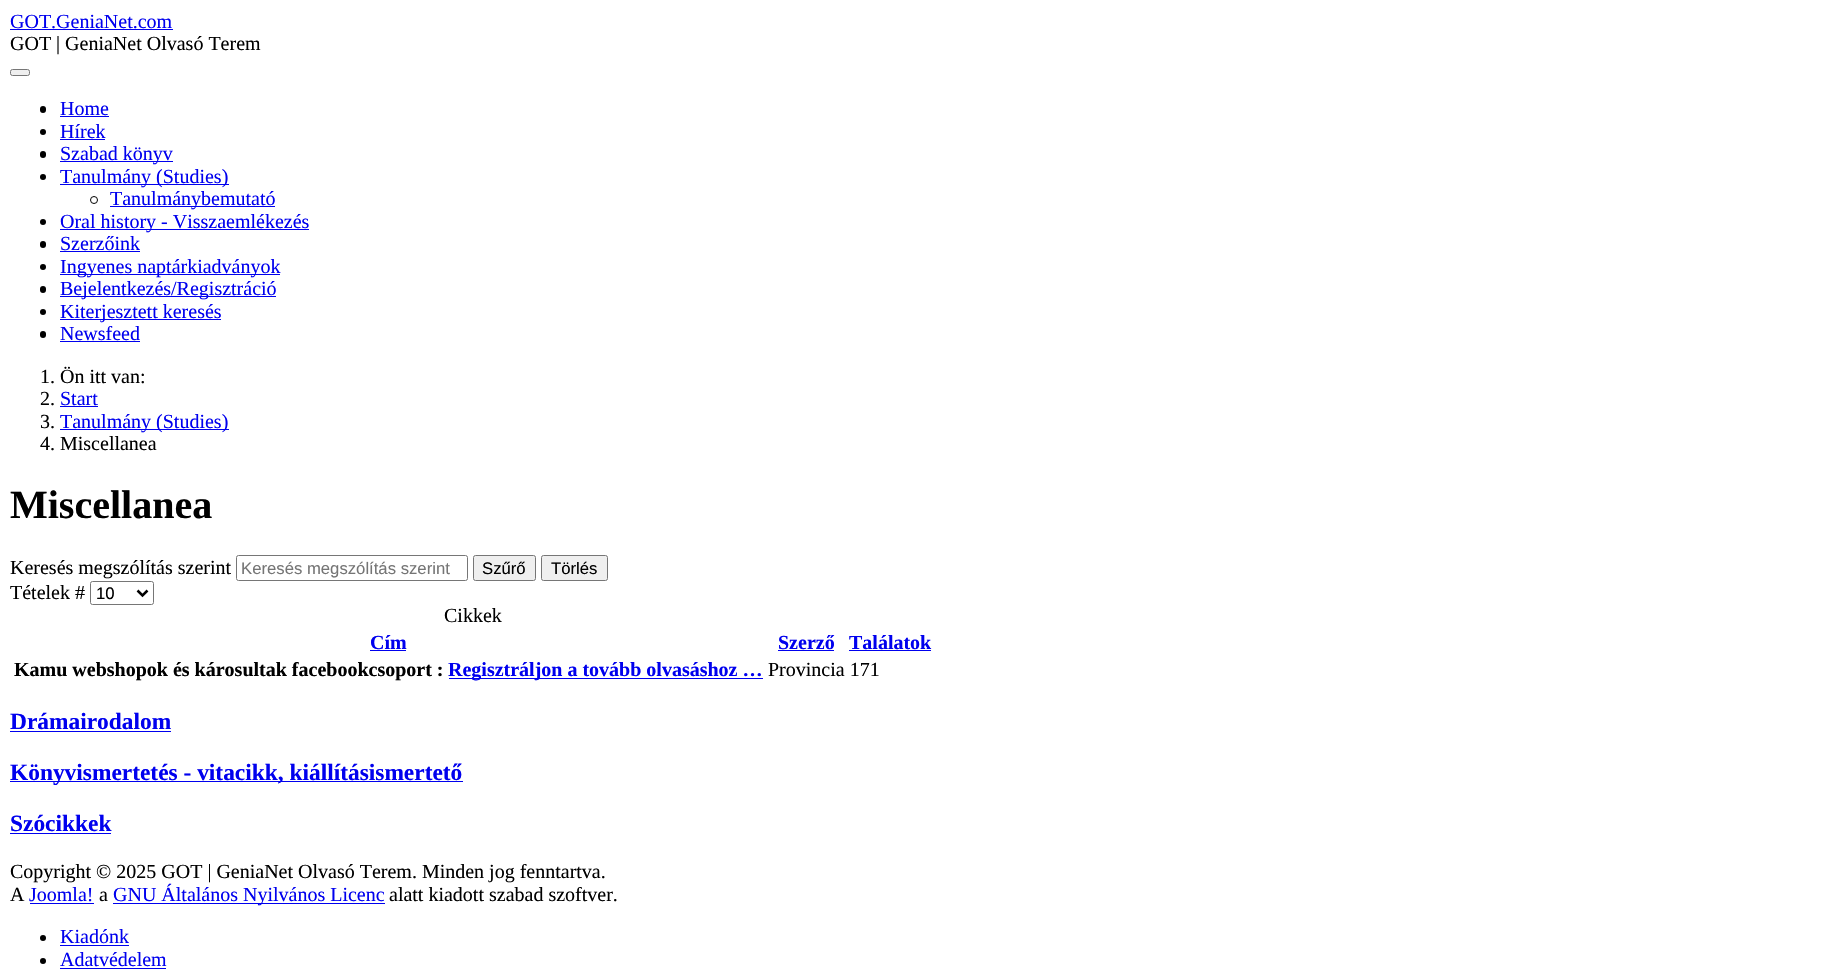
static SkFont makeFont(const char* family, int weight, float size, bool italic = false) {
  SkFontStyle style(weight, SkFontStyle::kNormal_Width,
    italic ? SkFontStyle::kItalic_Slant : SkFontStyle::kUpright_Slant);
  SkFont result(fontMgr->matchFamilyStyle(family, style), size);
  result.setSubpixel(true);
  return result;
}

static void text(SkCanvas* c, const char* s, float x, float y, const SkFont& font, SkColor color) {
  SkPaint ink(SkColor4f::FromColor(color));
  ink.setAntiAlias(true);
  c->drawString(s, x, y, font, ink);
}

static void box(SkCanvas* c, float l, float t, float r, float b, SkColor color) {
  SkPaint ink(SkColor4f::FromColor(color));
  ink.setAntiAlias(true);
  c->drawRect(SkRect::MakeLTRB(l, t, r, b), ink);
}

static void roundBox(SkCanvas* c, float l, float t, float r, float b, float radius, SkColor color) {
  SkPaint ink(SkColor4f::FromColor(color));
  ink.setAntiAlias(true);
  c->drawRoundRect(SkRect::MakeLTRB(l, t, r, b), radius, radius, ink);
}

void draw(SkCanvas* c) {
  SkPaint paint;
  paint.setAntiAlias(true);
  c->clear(0xffffffff);
  SkFont face1 = makeFont("Liberation Serif", 400, 20);
  text(c, "GOT.GeniaNet.com", 10, 28, face1, 0xff0000ee);
  box(c, 10, 29, 173, 30, 0xff0000ee);
  text(c, "GOT | GeniaNet Olvasó Terem", 10, 50, face1, 0xff000000);
  paint.setColor(0xffefefef);
  c->drawRoundRect(SkRect::MakeLTRB(10.5f, 69.5f, 29.5f, 75.5f), 2, 2, paint);
  paint.setStyle(SkPaint::kStroke_Style);
  paint.setStrokeWidth(1);
  paint.setColor(0xff767676);
  c->drawRoundRect(SkRect::MakeLTRB(10.5f, 69.5f, 29.5f, 75.5f), 2, 2, paint);
  roundBox(c, 40, 106, 46, 113, 3, 0xff000000);
  text(c, "Home", 60, 115, face1, 0xff0000ee);
  box(c, 60, 116, 109, 117, 0xff0000ee);
  paint.setStyle(SkPaint::kFill_Style);
  paint.setColor(0xff000000);
  c->drawCircle(43, 132, 3, paint);
  text(c, "Hírek", 60, 138, face1, 0xff0000ee);
  box(c, 60, 139, 105, 140, 0xff0000ee);
  roundBox(c, 40, 151, 46, 158, 3, 0xff000000);
  box(c, 60, 161, 173, 162, 0xff0000ee);
  text(c, "Szabad könyv", 60, 160, face1, 0xff0000ee);
  c->drawCircle(43, 177, 3, paint);
  box(c, 60, 184, 229, 185, 0xff0000ee);
  text(c, "Tanulmány (Studies)", 60, 183, face1, 0xff0000ee);
  paint.setStyle(SkPaint::kStroke_Style);
  c->drawCircle(94, 200, 3.5f, paint);
  box(c, 110, 206, 275, 207, 0xff0000ee);
  text(c, "Tanulmánybemutató", 110, 205, face1, 0xff0000ee);
  paint.setStyle(SkPaint::kFill_Style);
  c->drawCircle(43, 222, 3, paint);
  box(c, 60, 229, 309, 230, 0xff0000ee);
  text(c, "Oral history - Visszaemlékezés", 60, 228, face1, 0xff0000ee);
  roundBox(c, 40, 241, 46, 248, 3, 0xff000000);
  text(c, "Szerzőink", 60, 250, face1, 0xff0000ee);
  box(c, 60, 251, 140, 252, 0xff0000ee);
  c->drawCircle(43, 267, 3, paint);
  box(c, 60, 274, 280, 275, 0xff0000ee);
  text(c, "Ingyenes naptárkiadványok", 60, 273, face1, 0xff0000ee);
  roundBox(c, 40, 286, 46, 293, 3, 0xff000000);
  box(c, 60, 296, 276, 297, 0xff0000ee);
  text(c, "Bejelentkezés/Regisztráció", 60, 295, face1, 0xff0000ee);
  c->drawCircle(43, 312, 3, paint);
  box(c, 60, 319, 221, 320, 0xff0000ee);
  text(c, "Kiterjesztett keresés", 60, 318, face1, 0xff0000ee);
  roundBox(c, 40, 331, 46, 338, 3, 0xff000000);
  text(c, "Newsfeed", 60, 340, face1, 0xff0000ee);
  box(c, 60, 341, 140, 342, 0xff0000ee);
  text(c, "1. Ön itt van:", 40, 383, face1, 0xff000000);
  text(c, "2.", 40, 405, face1, 0xff000000);
  text(c, "Start", 60, 405, face1, 0xff0000ee);
  box(c, 60, 406, 98, 407, 0xff0000ee);
  text(c, "3.", 40, 428, face1, 0xff000000);
  box(c, 60, 429, 229, 430, 0xff0000ee);
  text(c, "Tanulmány (Studies)", 60, 428, face1, 0xff0000ee);
  text(c, "4. Miscellanea", 40, 450, face1, 0xff000000);
  SkFont face2 = makeFont("Liberation Serif", 700, 40);
  text(c, "Miscellanea", 10, 518, face2, 0xff000000);
  text(c, "Keresés megszólítás szerint", 10, 574, face1, 0xff000000);
  paint.setStyle(SkPaint::kStroke_Style);
  paint.setColor(0xff767676);
  c->drawRoundRect(SkRect::MakeLTRB(236.5f, 555.5f, 467.5f, 580.5f), 2, 2, paint);
  SkFont face3 = makeFont("Liberation Sans", 400, 16.7f);
  text(c, "Keresés megszólítás szerint", 241, 574, face3, 0xff757575);
  paint.setStyle(SkPaint::kFill_Style);
  paint.setColor(0xffefefef);
  c->drawRoundRect(SkRect::MakeLTRB(473.5f, 555.5f, 535.5f, 580.5f), 2, 2, paint);
  paint.setStyle(SkPaint::kStroke_Style);
  paint.setColor(0xff767676);
  c->drawRoundRect(SkRect::MakeLTRB(473.5f, 555.5f, 535.5f, 580.5f), 2, 2, paint);
  text(c, "Szűrő", 482, 574, face3, 0xff000000);
  paint.setStyle(SkPaint::kFill_Style);
  paint.setColor(0xffefefef);
  c->drawRoundRect(SkRect::MakeLTRB(541.5f, 555.5f, 607.5f, 580.5f), 2, 2, paint);
  paint.setStyle(SkPaint::kStroke_Style);
  paint.setColor(0xff767676);
  c->drawRoundRect(SkRect::MakeLTRB(541.5f, 555.5f, 607.5f, 580.5f), 2, 2, paint);
  text(c, "Törlés", 551, 574, face3, 0xff000000);
  text(c, "Tételek #", 10, 599, face1, 0xff000000);
  c->drawRoundRect(SkRect::MakeLTRB(90.5f, 581.5f, 153.5f, 604.5f), 2, 2, paint);
  paint.setStrokeWidth(2.5f);
  paint.setColor(0xff000000);
  c->drawPath(SkPathBuilder().moveTo(137.5f, 590.5f).lineTo(142.5f, 595.5f).lineTo(147.5f, 590.5f).detach(), paint);
  text(c, "10", 96, 599, face3, 0xff000000);
  text(c, "Cikkek", 444, 622, face1, 0xff000000);
  SkFont face4 = makeFont("Liberation Serif", 700, 20);
  text(c, "Cím", 370, 649, face4, 0xff0000ee);
  box(c, 370, 650, 406, 651, 0xff0000ee);
  text(c, "Szerző", 778, 649, face4, 0xff0000ee);
  box(c, 778, 650, 834, 651, 0xff0000ee);
  text(c, "Találatok", 849, 649, face4, 0xff0000ee);
  box(c, 849, 650, 931, 651, 0xff0000ee);
  text(c, "Kamu webshopok és károsultak facebookcsoport :", 14, 676, face4, 0xff000000);
  box(c, 449, 678, 763, 679, 0xff0000ee);
  text(c, "Regisztráljon a tovább olvasáshoz …", 448, 676, face4, 0xff0000ee);
  text(c, "Provincia 171", 768, 676, face1, 0xff000000);
  SkFont face5 = makeFont("Liberation Serif", 700, 23.4f);
  text(c, "Drámairodalom", 10, 729, face5, 0xff0000ee);
  box(c, 10, 731, 171, 732, 0xff0000ee);
  box(c, 10, 781, 463, 782, 0xff0000ee);
  text(c, "Könyvismertetés - vitacikk, kiállításismertető", 10, 780, face5, 0xff0000ee);
  text(c, "Szócikkek", 10, 831, face5, 0xff0000ee);
  box(c, 10, 833, 111, 834, 0xff0000ee);
  text(c, "Copyright © 2025 GOT | GeniaNet Olvasó Terem. Minden jog fenntartva.", 10, 878, face1, 0xff000000);
  text(c, "A", 10, 901, face1, 0xff000000);
  text(c, "Joomla!", 29, 901, face1, 0xff0000ee);
  box(c, 30, 903, 94, 904, 0xff0000ee);
  text(c, "a", 99, 901, face1, 0xff000000);
  box(c, 113, 903, 385, 904, 0xff0000ee);
  text(c, "GNU Általános Nyilvános Licenc", 113, 901, face1, 0xff0000ee);
  text(c, "alatt kiadott szabad szoftver.", 389, 901, face1, 0xff000000);
  paint.setStyle(SkPaint::kFill_Style);
  c->drawCircle(43, 938, 3, paint);
  text(c, "Kiadónk", 60, 943, face1, 0xff0000ee);
  box(c, 60, 945, 129, 946, 0xff0000ee);
  c->drawCircle(43, 961, 3, paint);
  text(c, "Adatvédelem", 60, 966, face1, 0xff0000ee);
  box(c, 60, 968, 166, 969, 0xff0000ee);
}
